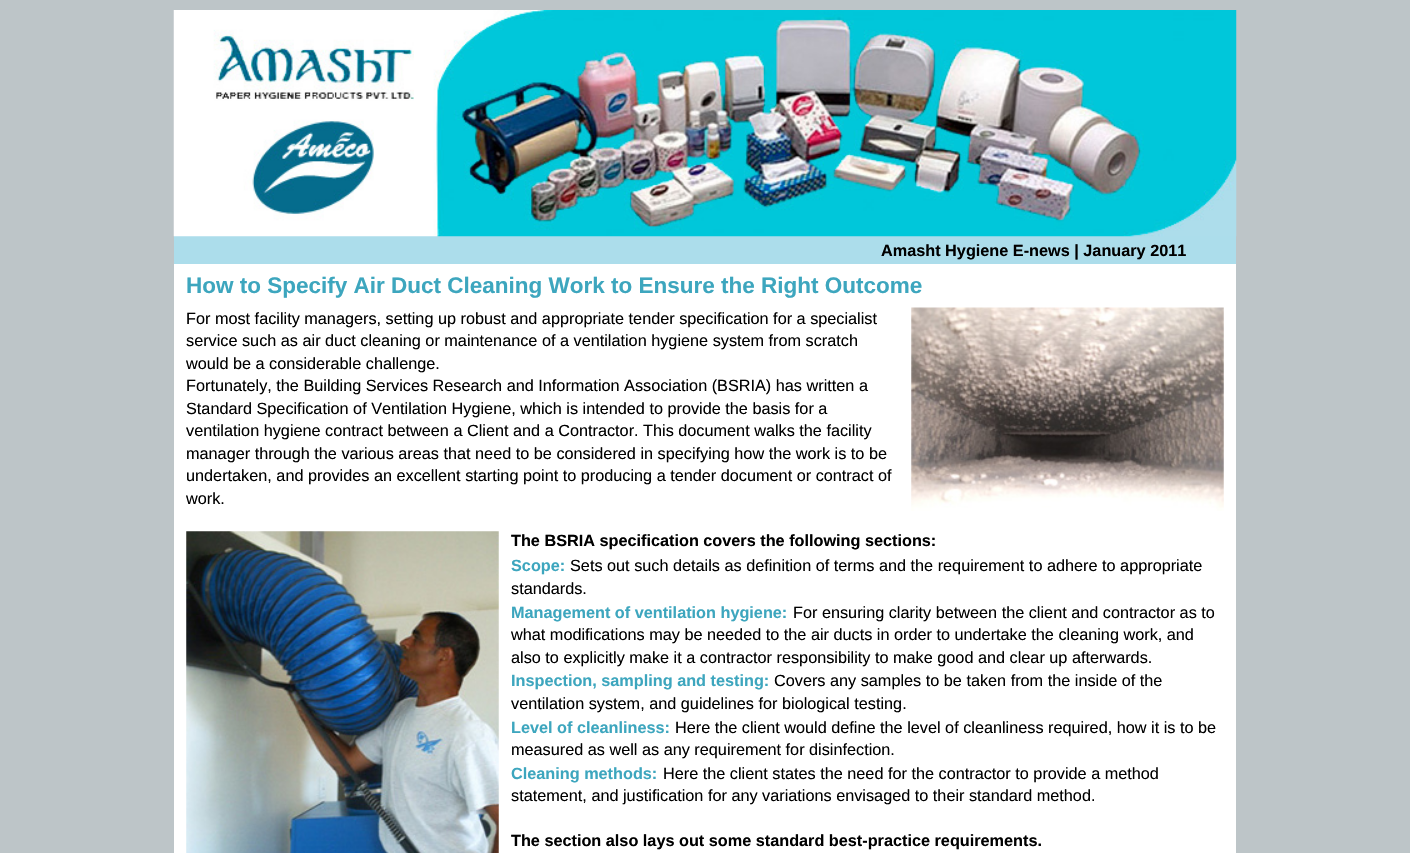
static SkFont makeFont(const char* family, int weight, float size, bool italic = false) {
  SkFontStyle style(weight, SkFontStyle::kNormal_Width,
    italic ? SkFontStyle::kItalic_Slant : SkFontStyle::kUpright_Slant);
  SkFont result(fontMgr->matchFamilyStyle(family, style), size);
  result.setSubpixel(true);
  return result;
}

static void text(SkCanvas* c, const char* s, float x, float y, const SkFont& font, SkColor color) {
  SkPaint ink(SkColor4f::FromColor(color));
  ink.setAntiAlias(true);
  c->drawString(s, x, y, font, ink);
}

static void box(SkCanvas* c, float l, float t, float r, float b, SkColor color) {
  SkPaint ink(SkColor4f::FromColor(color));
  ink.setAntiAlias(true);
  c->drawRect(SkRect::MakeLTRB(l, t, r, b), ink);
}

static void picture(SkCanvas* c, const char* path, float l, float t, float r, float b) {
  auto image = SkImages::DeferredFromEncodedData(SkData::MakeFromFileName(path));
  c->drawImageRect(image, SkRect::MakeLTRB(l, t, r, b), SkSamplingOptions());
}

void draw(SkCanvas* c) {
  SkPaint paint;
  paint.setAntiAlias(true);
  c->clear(0xffbdc5c8);
  box(c, 174, 236, 1236, 264, 0xffacddeb);
  picture(c, "img_01.png", 173, 10, 1237, 237);
  SkFont face1 = makeFont("Liberation Sans", 700, 16.25f);
  text(c, "Amasht Hygiene E-news | January 2011", 881, 256, face1, 0xff000000);
  box(c, 174, 264, 1236, 853, 0xffffffff);
  SkFont face2 = makeFont("Liberation Sans", 700, 22.5f);
  text(c, "How to Specify Air Duct Cleaning Work to Ensure the Right Outcome", 186, 293, face2, 0xff3da6be);
  SkFont face3 = makeFont("Liberation Sans", 400, 16.25f);
  text(c, "For most facility managers, setting up robust and appropriate tender specification for a specialist", 186, 324, face3, 0xff000000);
  text(c, "service such as air duct cleaning or maintenance of a ventilation hygiene system from scratch", 186, 346, face3, 0xff000000);
  text(c, "would be a considerable challenge.", 186, 369, face3, 0xff000000);
  text(c, "Fortunately, the Building Services Research and Information Association (BSRIA) has written a", 186, 391, face3, 0xff000000);
  text(c, "Standard Specification of Ventilation Hygiene, which is intended to provide the basis for a", 186, 414, face3, 0xff000000);
  text(c, "ventilation hygiene contract between a Client and a Contractor. This document walks the facility", 186, 436, face3, 0xff000000);
  text(c, "manager through the various areas that need to be considered in specifying how the work is to be", 186, 459, face3, 0xff000000);
  text(c, "undertaken, and provides an excellent starting point to producing a tender document or contract of", 186, 481, face3, 0xff000000);
  text(c, "work.", 186, 504, face3, 0xff000000);
  picture(c, "img_02.png", 911, 307, 1224, 511);
  picture(c, "img_03.png", 186, 531, 499, 853);
  text(c, "The BSRIA specification covers the following sections:", 511, 546, face1, 0xff000000);
  text(c, "Scope:", 511, 571, face1, 0xff3da6be);
  text(c, "Sets out such details as definition of terms and the requirement to adhere to appropriate", 570, 571, face3, 0xff000000);
  text(c, "standards.", 511, 594, face3, 0xff000000);
  text(c, "Management of ventilation hygiene:", 511, 618, face1, 0xff3da6be);
  text(c, "For ensuring clarity between the client and contractor as to", 793, 618, face3, 0xff000000);
  text(c, "what modifications may be needed to the air ducts in order to undertake the cleaning work, and", 511, 640, face3, 0xff000000);
  text(c, "also to explicitly make it a contractor responsibility to make good and clear up afterwards.", 511, 663, face3, 0xff000000);
  text(c, "Inspection, sampling and testing:", 511, 686, face1, 0xff3da6be);
  text(c, "Covers any samples to be taken from the inside of the", 774, 686, face3, 0xff000000);
  text(c, "ventilation system, and guidelines for biological testing.", 511, 709, face3, 0xff000000);
  text(c, "Level of cleanliness:", 511, 733, face1, 0xff3da6be);
  text(c, "Here the client would define the level of cleanliness required, how it is to be", 675, 733, face3, 0xff000000);
  text(c, "measured as well as any requirement for disinfection.", 511, 755, face3, 0xff000000);
  text(c, "Cleaning methods:", 511, 779, face1, 0xff3da6be);
  text(c, "Here the client states the need for the contractor to provide a method", 663, 779, face3, 0xff000000);
  text(c, "statement, and justification for any variations envisaged to their standard method.", 511, 801, face3, 0xff000000);
  text(c, "The section also lays out some standard best-practice requirements.", 511, 846, face1, 0xff000000);
}
